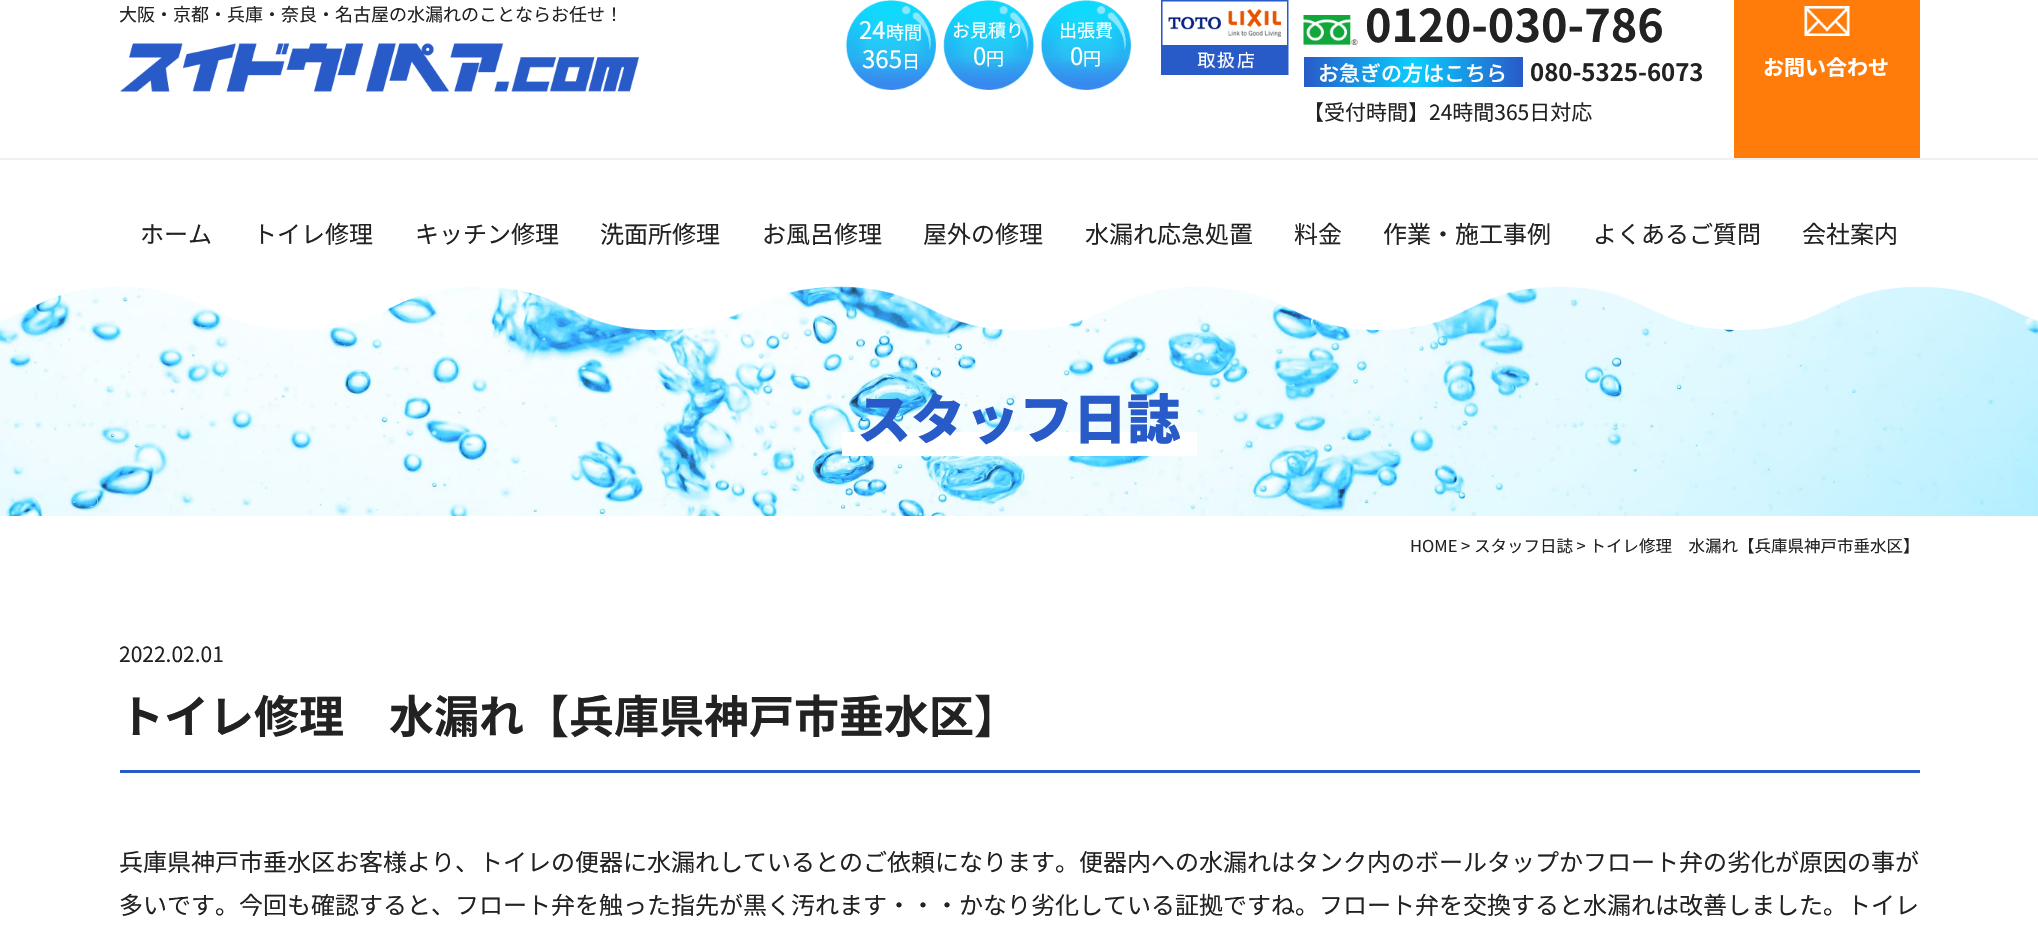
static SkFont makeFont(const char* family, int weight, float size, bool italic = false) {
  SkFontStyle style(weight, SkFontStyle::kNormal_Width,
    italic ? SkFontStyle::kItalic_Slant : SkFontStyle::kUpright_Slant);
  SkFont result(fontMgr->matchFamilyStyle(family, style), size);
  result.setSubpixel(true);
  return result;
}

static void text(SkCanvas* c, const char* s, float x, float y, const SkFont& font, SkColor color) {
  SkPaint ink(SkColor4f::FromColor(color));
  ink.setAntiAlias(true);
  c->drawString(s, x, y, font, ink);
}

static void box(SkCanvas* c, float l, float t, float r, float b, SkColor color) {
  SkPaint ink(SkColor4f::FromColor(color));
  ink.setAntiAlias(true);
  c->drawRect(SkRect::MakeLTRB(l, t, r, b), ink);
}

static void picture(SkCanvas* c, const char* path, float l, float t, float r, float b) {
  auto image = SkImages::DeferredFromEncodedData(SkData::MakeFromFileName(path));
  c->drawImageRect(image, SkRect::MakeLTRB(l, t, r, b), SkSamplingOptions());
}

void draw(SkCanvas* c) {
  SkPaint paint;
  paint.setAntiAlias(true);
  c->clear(0xffffffff);
  SkFont face1 = makeFont("Noto Sans JP", 400, 18);
  text(c, "大阪・京都・兵庫・奈良・名古屋の水漏れのことならお任せ！", 119, 21, face1, 0xff222222);
  picture(c, "img_01.png", 120, 43, 639, 92);
  picture(c, "img_02.png", 846, 0, 936, 90);
  SkFont face2 = makeFont("Noto Sans JP", 400, 24);
  text(c, "24", 859, 39, face2, 0xffffffff);
  text(c, "時間", 886, 39, face1, 0xffffffff);
  text(c, "365", 862, 68, face2, 0xffffffff);
  text(c, "日", 902, 68, face1, 0xffffffff);
  picture(c, "img_03.png", 943, 0, 1034, 90);
  text(c, "お見積り", 952, 37, face1, 0xffffffff);
  text(c, "0", 973, 65, face2, 0xffffffff);
  text(c, "円", 986, 65, face1, 0xffffffff);
  picture(c, "img_04.png", 1041, 0, 1131, 90);
  text(c, "出張費", 1059, 37, face1, 0xffffffff);
  text(c, "0", 1070, 65, face2, 0xffffffff);
  text(c, "円", 1083, 65, face1, 0xffffffff);
  picture(c, "img_05.png", 1161, 0, 1289, 75);
  picture(c, "img_06.png", 1303, 15, 1358, 45);
  SkFont face3 = makeFont("Noto Sans JP", 700, 45);
  text(c, "0120-030-786", 1365, 42, face3, 0xff222222);
  {
    const SkColor colors[] = {0xff285ac8, 0xff0aceff, 0xff285ac8};
    const float stops[] = {0, 0.5f, 1};
    const SkPoint ends[] = {{1304, 72}, {1523, 72}};
    paint.setShader(SkGradientShader::MakeLinear(ends, colors, stops, 3, SkTileMode::kClamp));
    paint.setAlpha(255);
  }
  c->drawRect(SkRect::MakeLTRB(1304, 57, 1523, 87), paint);
  SkFont face4 = makeFont("Noto Sans JP", 500, 21);
  text(c, "お急ぎの方はこちら", 1318, 81, face4, 0xffffffff);
  SkFont face5 = makeFont("Noto Sans JP", 700, 24);
  text(c, "080-5325-6073", 1530, 81, face5, 0xff222222);
  SkFont face6 = makeFont("Noto Sans JP", 400, 21);
  text(c, "【受付時間】24時間365日対応", 1303, 120, face6, 0xff222222);
  box(c, 1734, 0, 1920, 158, 0xffff7c0a);
  picture(c, "img_07.png", 1804, 6, 1850, 36);
  SkFont face7 = makeFont("Noto Sans JP", 700, 21);
  text(c, "お問い合わせ", 1763, 75, face7, 0xffffffff);
  box(c, 0, 158, 2038, 160, 0xfff0f0f0);
  text(c, "ホーム", 140, 243, face2, 0xff222222);
  text(c, "トイレ修理", 253, 243, face2, 0xff222222);
  text(c, "キッチン修理", 415, 243, face2, 0xff222222);
  text(c, "洗面所修理", 600, 243, face2, 0xff222222);
  text(c, "お風呂修理", 762, 243, face2, 0xff222222);
  text(c, "屋外の修理", 923, 243, face2, 0xff222222);
  text(c, "水漏れ応急処置", 1085, 243, face2, 0xff222222);
  text(c, "料金", 1294, 243, face2, 0xff222222);
  text(c, "作業・施工事例", 1383, 243, face2, 0xff222222);
  text(c, "よくあるご質問", 1593, 243, face2, 0xff222222);
  text(c, "会社案内", 1802, 243, face2, 0xff222222);
  picture(c, "img_08.png", 0, 286, 2038, 516);
  picture(c, "img_09.png", 0, 285, 2038, 330);
  box(c, 842, 432, 1197, 456, 0xffffffff);
  SkFont face8 = makeFont("Noto Sans JP", 900, 54);
  text(c, "スタッフ日誌", 857, 439, face8, 0xff285ac8);
  SkFont face9 = makeFont("Noto Sans JP", 400, 16.5f);
  text(c, "HOME > スタッフ日誌 > トイレ修理　水漏れ【兵庫県神戸市垂水区】", 1410, 552, face9, 0xff222222);
  text(c, "2022.02.01", 119, 662, face6, 0xff222222);
  box(c, 120, 770, 1920, 773, 0xff285ac8);
  text(c, "トイレ修理　水漏れ【兵庫県神戸市垂水区】", 119, 733, face3, 0xff222222);
  text(c, "兵庫県神戸市垂水区お客様より、トイレの便器に水漏れしているとのご依頼になります。便器内への水漏れはタンク内のボールタップかフロート弁の劣化が原因の事が", 119, 871, face2, 0xff222222);
  text(c, "多いです。今回も確認すると、フロート弁を触った指先が黒く汚れます・・・かなり劣化している証拠ですね。フロート弁を交換すると水漏れは改善しました。トイレ", 119, 914, face2, 0xff222222);
}
